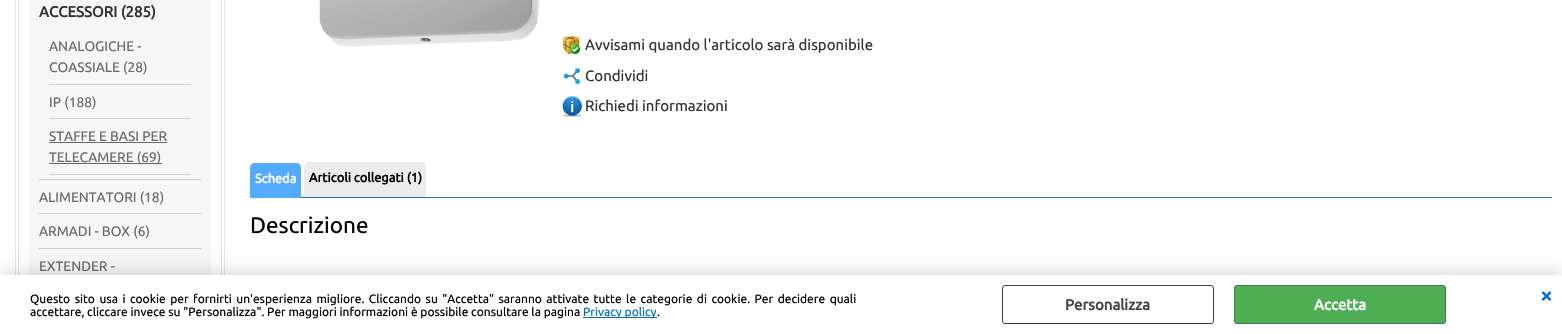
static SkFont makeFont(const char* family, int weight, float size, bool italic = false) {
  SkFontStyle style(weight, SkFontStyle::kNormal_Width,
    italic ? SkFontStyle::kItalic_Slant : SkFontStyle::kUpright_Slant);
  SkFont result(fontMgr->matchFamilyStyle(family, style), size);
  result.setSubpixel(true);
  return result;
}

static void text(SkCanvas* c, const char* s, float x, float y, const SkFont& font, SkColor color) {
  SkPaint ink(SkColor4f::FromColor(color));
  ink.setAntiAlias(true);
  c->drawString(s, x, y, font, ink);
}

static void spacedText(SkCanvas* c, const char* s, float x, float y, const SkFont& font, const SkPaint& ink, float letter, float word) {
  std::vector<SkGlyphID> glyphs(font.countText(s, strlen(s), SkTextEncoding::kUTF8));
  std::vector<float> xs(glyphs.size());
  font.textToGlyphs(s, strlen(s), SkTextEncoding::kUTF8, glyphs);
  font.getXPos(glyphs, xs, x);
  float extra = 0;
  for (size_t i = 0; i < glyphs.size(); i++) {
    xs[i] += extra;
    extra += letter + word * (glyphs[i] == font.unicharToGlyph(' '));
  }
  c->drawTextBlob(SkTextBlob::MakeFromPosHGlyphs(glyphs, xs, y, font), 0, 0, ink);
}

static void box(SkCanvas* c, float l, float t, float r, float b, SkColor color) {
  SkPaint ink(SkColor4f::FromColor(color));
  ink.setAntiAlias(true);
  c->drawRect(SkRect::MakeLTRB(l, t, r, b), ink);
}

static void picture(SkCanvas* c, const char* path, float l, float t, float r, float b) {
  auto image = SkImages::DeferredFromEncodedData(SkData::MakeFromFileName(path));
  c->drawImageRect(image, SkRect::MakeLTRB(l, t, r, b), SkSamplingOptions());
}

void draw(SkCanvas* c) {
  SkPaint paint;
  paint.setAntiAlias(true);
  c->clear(0xffffffff);
  paint.setStyle(SkPaint::kStroke_Style);
  paint.setStrokeWidth(1);
  paint.setColor(0xffe4e4e4);
  c->drawRect(SkRect::MakeLTRB(15.5f, -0.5f, 224.5f, 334.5f), paint);
  c->drawRect(SkRect::MakeLTRB(18.5f, -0.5f, 221.5f, 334.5f), paint);
  box(c, 29, 0, 211, 275, 0xfff6f6f6);
  box(c, 39, 179, 201, 180, 0xffd0d0d0);
  SkFont face1 = makeFont("Ubuntu", 700, 15);
  text(c, "ACCESSORI (285)", 39, 17, face1, 0xff333333);
  box(c, 49, 84, 191, 85, 0xffd0d0d0);
  SkFont face2 = makeFont("Ubuntu", 400, 13.75f);
  text(c, "ANALOGICHE -", 49, 51, face2, 0xff6b6969);
  text(c, "COASSIALE (28)", 49, 72, face2, 0xff6b6969);
  box(c, 49, 118, 191, 119, 0xffd0d0d0);
  text(c, "IP (188)", 49, 107, face2, 0xff6b6969);
  box(c, 49, 174, 191, 175, 0xffd0d0d0);
  text(c, "STAFFE E BASI PER", 49, 141, face2, 0xff6b6969);
  box(c, 49, 142, 167, 143, 0xff6b6969);
  box(c, 49, 163, 162, 164, 0xff6b6969);
  text(c, "TELECAMERE (69)", 49, 162, face2, 0xff6b6969);
  box(c, 39, 213, 201, 214, 0xffd0d0d0);
  text(c, "ALIMENTATORI (18)", 39, 202, face2, 0xff6b6969);
  box(c, 39, 248, 201, 249, 0xffd0d0d0);
  text(c, "ARMADI - BOX (6)", 39, 236, face2, 0xff6b6969);
  text(c, "EXTENDER -", 39, 271, face2, 0xff6b6969);
  picture(c, "img_01.png", 319, 0, 539, 47);
  picture(c, "img_02.png", 563, 36, 580, 54);
  SkFont face3 = makeFont("Ubuntu", 400, 15);
  text(c, "Avvisami quando l'articolo sarà disponibile", 585, 50, face3, 0xff333333);
  picture(c, "img_03.png", 563, 68, 580, 84);
  text(c, "Condividi", 585, 81, face3, 0xff333333);
  picture(c, "img_04.png", 562, 96, 582, 117);
  text(c, "Richiedi informazioni", 585, 111, face3, 0xff333333);
  paint.setStyle(SkPaint::kFill_Style);
  paint.setColor(0xff52abff);
  c->drawPath(SkPathBuilder().moveTo(255, 163).lineTo(296, 163).cubicTo(299, 163, 301, 165, 301, 168).lineTo(301, 198).lineTo(250, 198).lineTo(250, 168).cubicTo(250, 165, 252, 163, 255, 163).close().detach(), paint);
  SkFont face4 = makeFont("Ubuntu", 700, 12.75f);
  text(c, "Scheda", 255, 183, face4, 0xffffffff);
  paint.setColor(0xffedecec);
  c->drawPath(SkPathBuilder().moveTo(309, 162).lineTo(421, 162).cubicTo(424, 162, 426, 164, 426, 167).lineTo(426, 197).lineTo(304, 197).lineTo(304, 167).cubicTo(304, 164, 306, 162, 309, 162).close().detach(), paint);
  text(c, "Articoli collegati (1)", 309, 182, face4, 0xff000000);
  box(c, 301, 197, 1552, 198, 0xff2270b9);
  SkFont face5 = makeFont("Ubuntu", 400, 22.5f);
  text(c, "Descrizione", 250, 233, face5, 0xff000000);
  paint.setColor(0x33000000);
  paint.setMaskFilter(SkMaskFilter::MakeBlur(kNormal_SkBlurStyle, 9));
  c->drawRect(SkRect::MakeLTRB(0, 275, 1562, 334), paint);
  paint.setMaskFilter(nullptr);
  box(c, 0, 275, 1562, 334, 0xffffffff);
  SkFont face6 = makeFont("Ubuntu", 400, 12);
  paint.setColor(0xff000000);
  spacedText(c, "Questo sito usa i cookie per fornirti un'esperienza migliore. Cliccando su \"Accetta\" saranno attivate tutte le categorie di cookie. Per decidere quali", 30, 303, face6, paint, 0, 1.7f);
  text(c, "accettare, cliccare invece su \"Personalizza\". Per maggiori informazioni è possibile consultare la pagina", 30, 316, face6, 0xff000000);
  box(c, 583, 317, 657, 318, 0xff026ccf);
  text(c, "Privacy policy", 583, 316, face6, 0xff026ccf);
  text(c, ".", 657, 316, face6, 0xff000000);
  paint.setStyle(SkPaint::kStroke_Style);
  paint.setColor(0xff424141);
  c->drawRoundRect(SkRect::MakeLTRB(1002.5f, 285.5f, 1213.5f, 323.5f), 2.5f, 2.5f, paint);
  text(c, "Personalizza", 1065, 310, face1, 0xff424141);
  paint.setStyle(SkPaint::kFill_Style);
  paint.setColor(0xff4eae54);
  c->drawRoundRect(SkRect::MakeLTRB(1234.5f, 285.5f, 1445.5f, 323.5f), 2.5f, 2.5f, paint);
  paint.setStyle(SkPaint::kStroke_Style);
  paint.setColor(0xff3f7755);
  c->drawRoundRect(SkRect::MakeLTRB(1234.5f, 285.5f, 1445.5f, 323.5f), 2.5f, 2.5f, paint);
  text(c, "Accetta", 1314, 310, face1, 0xffffffff);
  SkFont face7 = makeFont("Ubuntu", 700, 22);
  text(c, "×", 1540, 303, face7, 0xff026ccf);
}
